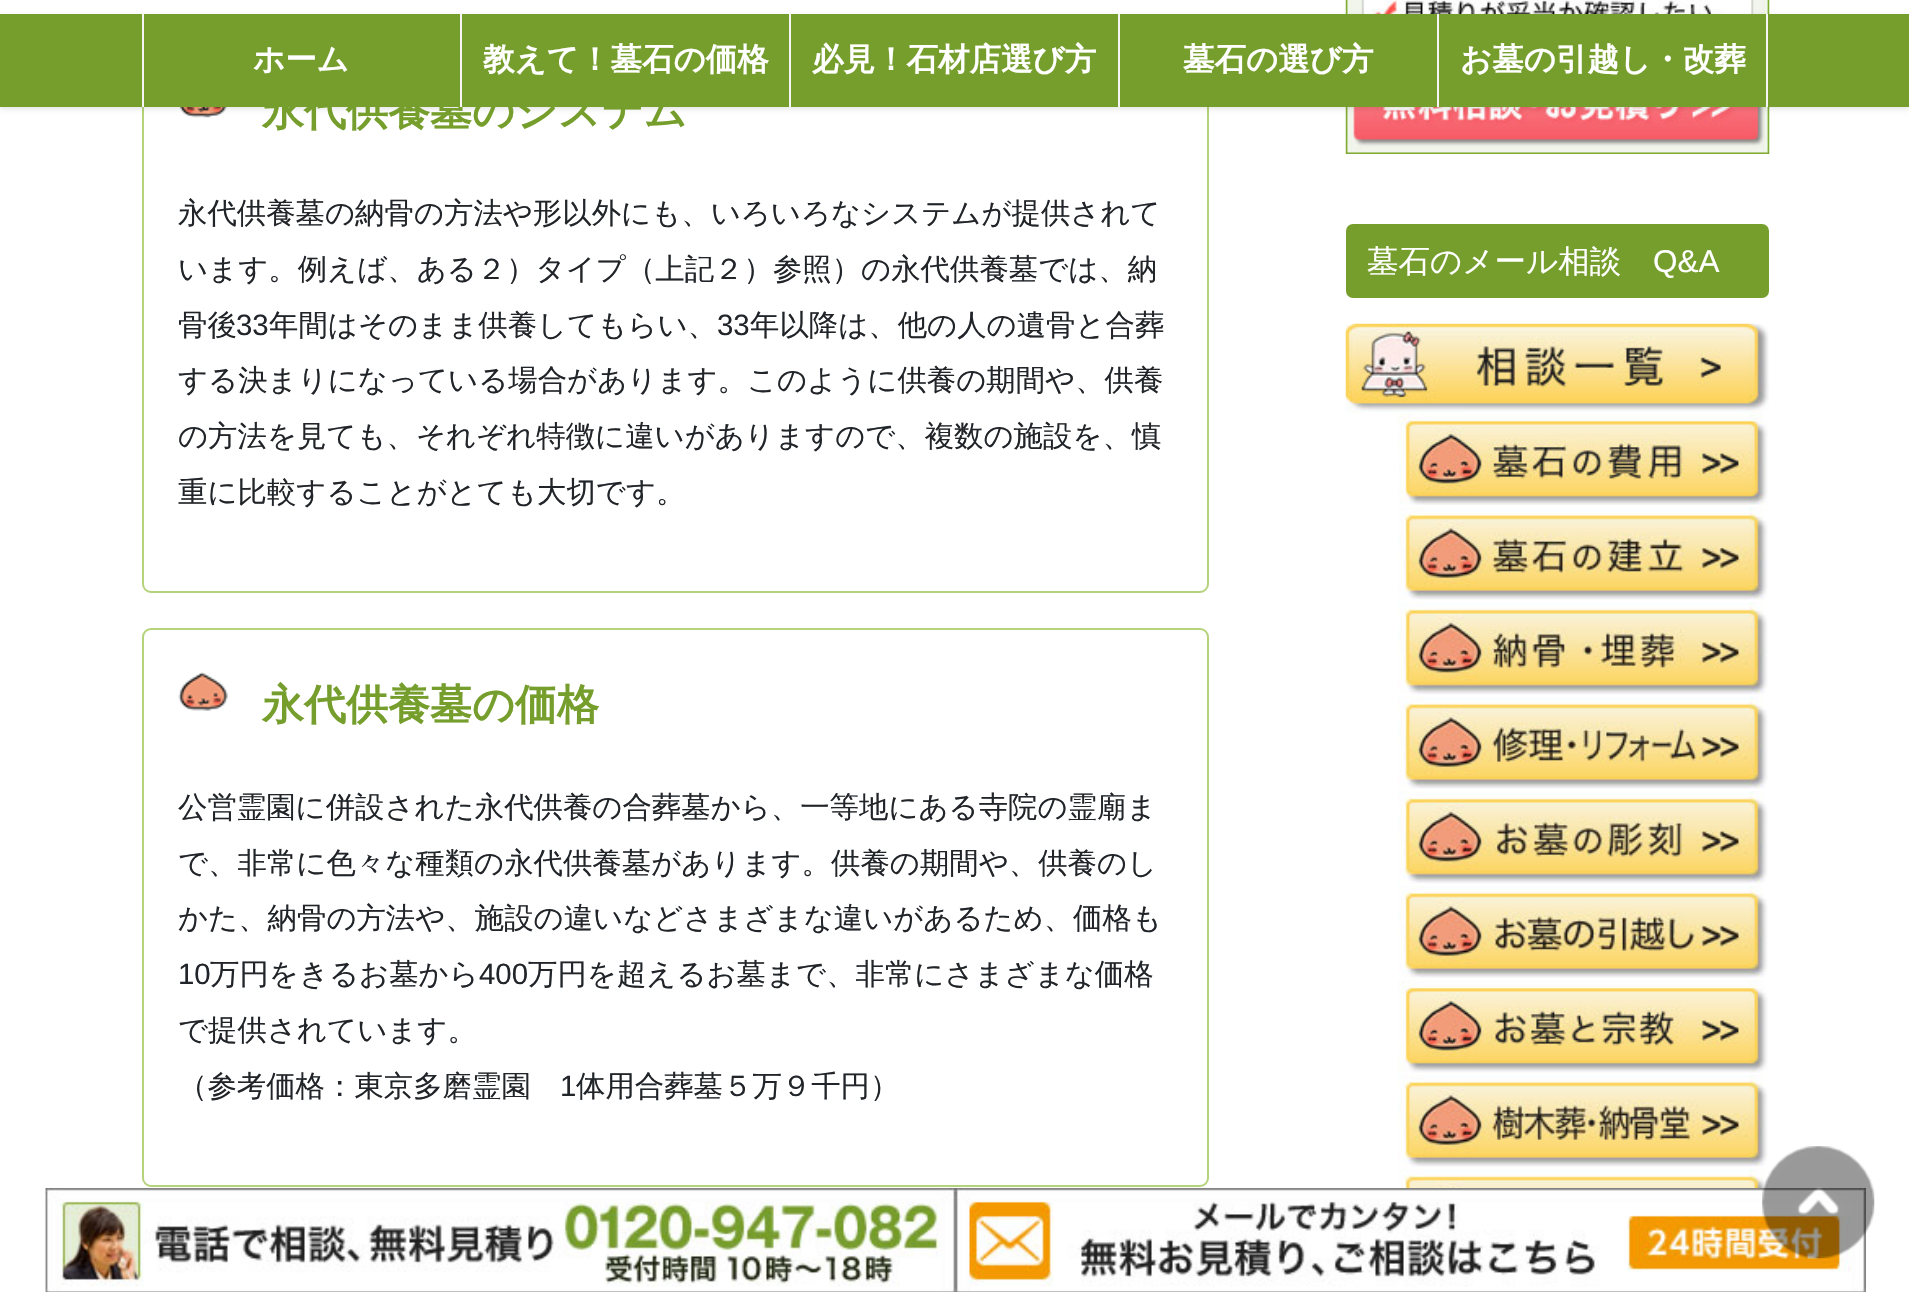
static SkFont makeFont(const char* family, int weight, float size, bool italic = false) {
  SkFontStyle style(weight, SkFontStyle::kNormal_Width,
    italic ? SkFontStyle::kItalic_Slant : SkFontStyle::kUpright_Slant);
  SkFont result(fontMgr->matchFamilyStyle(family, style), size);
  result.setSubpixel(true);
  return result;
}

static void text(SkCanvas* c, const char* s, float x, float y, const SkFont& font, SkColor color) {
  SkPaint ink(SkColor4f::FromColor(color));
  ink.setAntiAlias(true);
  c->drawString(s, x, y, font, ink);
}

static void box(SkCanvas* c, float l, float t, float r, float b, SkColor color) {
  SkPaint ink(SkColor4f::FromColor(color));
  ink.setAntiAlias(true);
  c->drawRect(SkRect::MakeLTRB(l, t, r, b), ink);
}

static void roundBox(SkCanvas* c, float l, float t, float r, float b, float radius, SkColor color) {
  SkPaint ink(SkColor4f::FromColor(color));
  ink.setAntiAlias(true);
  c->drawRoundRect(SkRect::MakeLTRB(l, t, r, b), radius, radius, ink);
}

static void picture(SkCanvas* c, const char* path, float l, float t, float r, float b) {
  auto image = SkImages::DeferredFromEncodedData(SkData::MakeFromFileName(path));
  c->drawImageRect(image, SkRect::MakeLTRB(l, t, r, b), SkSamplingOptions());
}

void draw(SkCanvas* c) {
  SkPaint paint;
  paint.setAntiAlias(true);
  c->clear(0xffffffff);
  paint.setStyle(SkPaint::kStroke_Style);
  paint.setStrokeWidth(2);
  paint.setColor(0xffb4d37a);
  c->drawRoundRect(SkRect::MakeLTRB(143, 36, 1208, 592), 8, 8, paint);
  picture(c, "img_01.png", 178, 107, 228, 118);
  picture(c, "img_03.png", 1345, 0, 1770, 154);
  paint.setStyle(SkPaint::kFill_Style);
  paint.setColor(0x1a000000);
  paint.setMaskFilter(SkMaskFilter::MakeBlur(kNormal_SkBlurStyle, 2.5f));
  c->drawRect(SkRect::MakeLTRB(0, 16, 1909, 109), paint);
  paint.setMaskFilter(nullptr);
  box(c, 0, 14, 1909, 107, 0xff769e2c);
  box(c, 142, 14, 144, 107, 0xfff5f5f5);
  SkFont face1 = makeFont("WenQuanYi Zen Hei", 700, 31.5f);
  text(c, "ホーム", 253, 70, face1, 0xffffffff);
  SkFont face2 = makeFont("WenQuanYi Zen Hei", 700, 42);
  text(c, "永代供養墓のシステム", 262, 125, face2, 0xff769e2c);
  box(c, 460, 14, 462, 107, 0xfff5f5f5);
  text(c, "教えて！墓石の価格", 483, 70, face1, 0xffffffff);
  box(c, 789, 14, 791, 107, 0xfff5f5f5);
  text(c, "必見！石材店選び方", 812, 70, face1, 0xffffffff);
  box(c, 1118, 14, 1120, 107, 0xfff5f5f5);
  text(c, "墓石の選び方", 1183, 70, face1, 0xffffffff);
  box(c, 1766, 14, 1768, 107, 0xfff5f5f5);
  box(c, 1437, 14, 1439, 107, 0xfff5f5f5);
  text(c, "お墓の引越し・改葬", 1460, 70, face1, 0xffffffff);
  SkFont face3 = makeFont("WenQuanYi Zen Hei", 500, 29.4f);
  text(c, "永代供養墓の納骨の方法や形以外にも、いろいろなシステムが提供されて", 178, 223, face3, 0xff212529);
  text(c, "います。例えば、ある２）タイプ（上記２）参照）の永代供養墓では、納", 178, 279, face3, 0xff212529);
  text(c, "骨後", 178, 335, face3, 0xff212529);
  SkFont face4 = makeFont("Liberation Sans", 400, 29.4f);
  text(c, "33", 236, 335, face4, 0xff212529);
  text(c, "年間はそのまま供養してもらい、", 269, 335, face3, 0xff212529);
  text(c, "33", 717, 335, face4, 0xff212529);
  text(c, "年以降は、他の人の遺骨と合葬", 750, 335, face3, 0xff212529);
  text(c, "する決まりになっている場合があります。このように供養の期間や、供養", 178, 390, face3, 0xff212529);
  text(c, "の方法を見ても、それぞれ特徴に違いがありますので、複数の施設を、慎", 178, 446, face3, 0xff212529);
  text(c, "重に比較することがとても大切です。", 178, 502, face3, 0xff212529);
  paint.setStyle(SkPaint::kStroke_Style);
  paint.setColor(0xffb4d37a);
  c->drawRoundRect(SkRect::MakeLTRB(143, 629, 1208, 1186), 8, 8, paint);
  picture(c, "img_02.png", 178, 672, 228, 711);
  text(c, "永代供養墓の価格", 262, 719, face2, 0xff769e2c);
  text(c, "公営霊園に併設された永代供養の合葬墓から、一等地にある寺院の霊廟ま", 178, 817, face3, 0xff212529);
  text(c, "で、非常に色々な種類の永代供養墓があります。供養の期間や、供養のし", 178, 873, face3, 0xff212529);
  text(c, "かた、納骨の方法や、施設の違いなどさまざまな違いがあるため、価格も", 178, 928, face3, 0xff212529);
  text(c, "10", 178, 984, face4, 0xff212529);
  text(c, "万円をきるお墓から", 210, 984, face3, 0xff212529);
  text(c, "400", 479, 984, face4, 0xff212529);
  text(c, "万円を超えるお墓まで、非常にさまざまな価格", 528, 984, face3, 0xff212529);
  text(c, "で提供されています。", 178, 1040, face3, 0xff212529);
  text(c, "（参考価格：東京多磨霊園", 178, 1096, face3, 0xff212529);
  text(c, "1", 560, 1096, face4, 0xff212529);
  text(c, "体用合葬墓５万９千円）", 576, 1096, face3, 0xff212529);
  roundBox(c, 1346, 224, 1769, 298, 7, 0xff769e2c);
  SkFont face5 = makeFont("WenQuanYi Zen Hei", 500, 31.5f);
  text(c, "墓石のメール相談", 1367, 272, face5, 0xffffffff);
  SkFont face6 = makeFont("Liberation Sans", 400, 31.5f);
  text(c, "Q&A", 1653, 272, face6, 0xffffffff);
  picture(c, "img_04.png", 1345, 323, 1769, 413);
  picture(c, "img_05.png", 1398, 413, 1768, 505);
  picture(c, "img_06.png", 1398, 507, 1768, 600);
  picture(c, "img_07.png", 1398, 602, 1768, 695);
  picture(c, "img_08.png", 1398, 696, 1768, 789);
  picture(c, "img_09.png", 1398, 791, 1768, 884);
  picture(c, "img_10.png", 1398, 885, 1768, 978);
  picture(c, "img_11.png", 1398, 980, 1768, 1073);
  picture(c, "img_12.png", 1398, 1074, 1768, 1167);
  picture(c, "img_13.png", 1398, 1169, 1768, 1188);
  picture(c, "img_16.png", 956, 1188, 1866, 1292);
  picture(c, "img_14.png", 1762, 1146, 1875, 1259);
  picture(c, "img_15.png", 45, 1188, 956, 1292);
}
